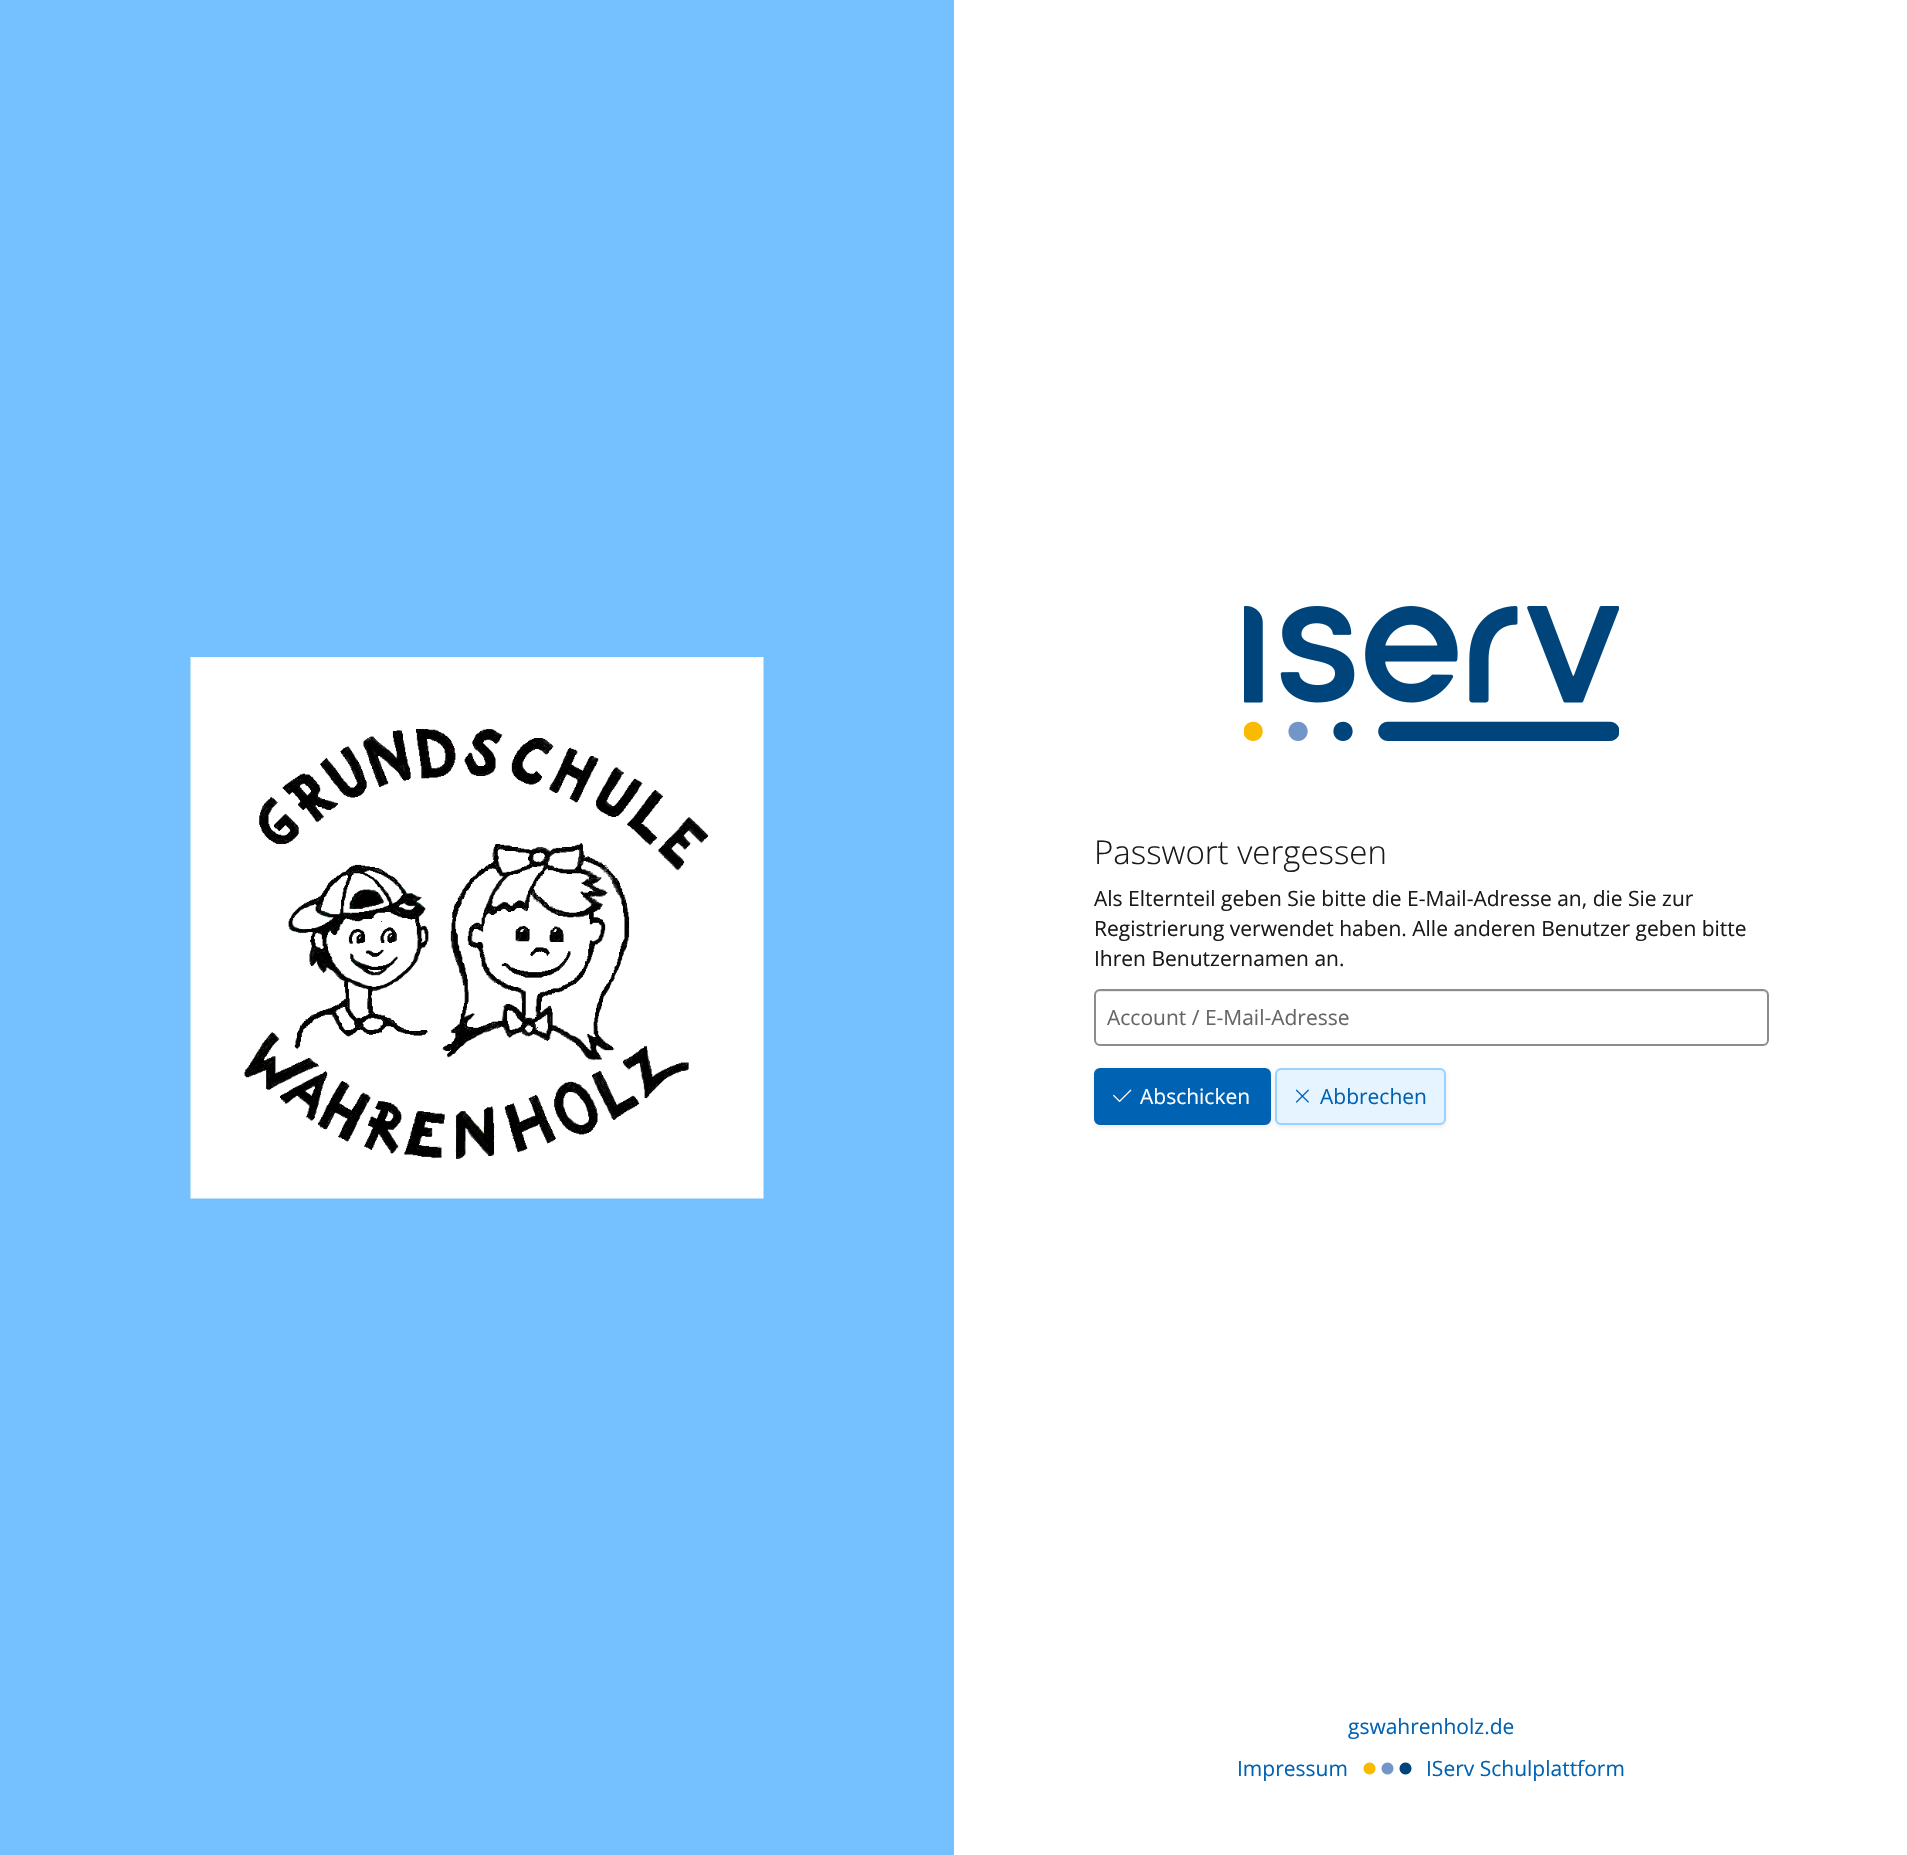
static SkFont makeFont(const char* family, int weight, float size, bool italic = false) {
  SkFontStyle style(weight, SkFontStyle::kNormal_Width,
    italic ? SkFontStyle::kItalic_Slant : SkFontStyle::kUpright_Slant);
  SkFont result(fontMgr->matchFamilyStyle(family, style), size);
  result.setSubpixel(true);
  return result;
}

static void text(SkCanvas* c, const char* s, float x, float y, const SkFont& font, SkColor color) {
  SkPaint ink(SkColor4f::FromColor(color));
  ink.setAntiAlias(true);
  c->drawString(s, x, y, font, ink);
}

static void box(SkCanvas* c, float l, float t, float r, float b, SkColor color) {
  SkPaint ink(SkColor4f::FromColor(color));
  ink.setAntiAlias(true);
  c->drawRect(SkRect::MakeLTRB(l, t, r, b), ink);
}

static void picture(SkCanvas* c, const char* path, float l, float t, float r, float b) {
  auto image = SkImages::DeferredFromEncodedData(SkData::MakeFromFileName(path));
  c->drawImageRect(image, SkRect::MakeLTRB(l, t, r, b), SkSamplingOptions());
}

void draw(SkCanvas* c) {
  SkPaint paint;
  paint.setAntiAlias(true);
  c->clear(0xffffffff);
  box(c, 0, 0, 954, 1855, 0xff75c1ff);
  picture(c, "img_01.png", 190, 657, 764, 1199);
  picture(c, "img_02.png", 1244, 606, 1619, 741);
  SkFont face1 = makeFont("Open Sans", 300, 33);
  text(c, "Passwort vergessen", 1094, 864, face1, 0xff1a1a1a);
  SkFont face2 = makeFont("Open Sans", 400, 21);
  text(c, "Als Elternteil geben Sie bitte die E-Mail-Adresse an, die Sie zur", 1094, 906, face2, 0xff1a1a1a);
  text(c, "Registrierung verwendet haben. Alle anderen Benutzer geben bitte", 1094, 936, face2, 0xff1a1a1a);
  text(c, "Ihren Benutzernamen an.", 1094, 966, face2, 0xff1a1a1a);
  paint.setColor(0xffececec);
  c->drawPath(SkPathBuilder().moveTo(1100, 992).lineTo(1762, 992).cubicTo(1765, 992, 1767, 994, 1767, 996).lineTo(1767, 995).cubicTo(1767, 992, 1765, 990, 1762, 990).lineTo(1100, 990).cubicTo(1097, 990, 1095, 992, 1095, 995).lineTo(1095, 996).cubicTo(1095, 994, 1097, 992, 1100, 992).close().detach(), paint);
  paint.setStyle(SkPaint::kStroke_Style);
  paint.setStrokeWidth(2);
  paint.setColor(0xff8c8c8c);
  c->drawRoundRect(SkRect::MakeLTRB(1095, 990, 1768, 1045), 5, 5, paint);
  text(c, "Account / E-Mail-Adresse", 1107, 1025, face2, 0xff666666);
  paint.setStyle(SkPaint::kFill_Style);
  paint.setColor(0x14000000);
  paint.setMaskFilter(SkMaskFilter::MakeBlur(kNormal_SkBlurStyle, 2));
  c->drawRoundRect(SkRect::MakeLTRB(1094, 1070, 1271, 1127), 6, 6, paint);
  paint.setMaskFilter(nullptr);
  paint.setColor(0xff0062b3);
  c->drawRoundRect(SkRect::MakeLTRB(1095, 1069, 1270, 1124), 5, 5, paint);
  paint.setStyle(SkPaint::kStroke_Style);
  c->drawRoundRect(SkRect::MakeLTRB(1095, 1069, 1270, 1124), 5, 5, paint);
  picture(c, "img_03.png", 1113, 1089, 1132, 1102);
  text(c, "Abschicken", 1140, 1104, face2, 0xffffffff);
  paint.setStyle(SkPaint::kFill_Style);
  paint.setColor(0x14000000);
  paint.setMaskFilter(SkMaskFilter::MakeBlur(kNormal_SkBlurStyle, 2));
  c->drawRoundRect(SkRect::MakeLTRB(1275, 1070, 1446, 1127), 6, 6, paint);
  paint.setMaskFilter(nullptr);
  paint.setColor(0xffe6f4ff);
  c->drawRoundRect(SkRect::MakeLTRB(1276, 1069, 1445, 1124), 5, 5, paint);
  paint.setStyle(SkPaint::kStroke_Style);
  paint.setColor(0xff99d1ff);
  c->drawRoundRect(SkRect::MakeLTRB(1276, 1069, 1445, 1124), 5, 5, paint);
  picture(c, "img_04.png", 1295, 1089, 1309, 1103);
  text(c, "Abbrechen", 1320, 1104, face2, 0xff0062b3);
  text(c, "gswahrenholz.de", 1348, 1734, face2, 0xff0062b3);
  text(c, "Impressum", 1237, 1776, face2, 0xff0062b3);
  picture(c, "img_05.png", 1363, 1762, 1376, 1775);
  picture(c, "img_06.png", 1381, 1762, 1394, 1775);
  picture(c, "img_07.png", 1399, 1762, 1412, 1775);
  text(c, "IServ Schulplattform", 1426, 1776, face2, 0xff0062b3);
}
